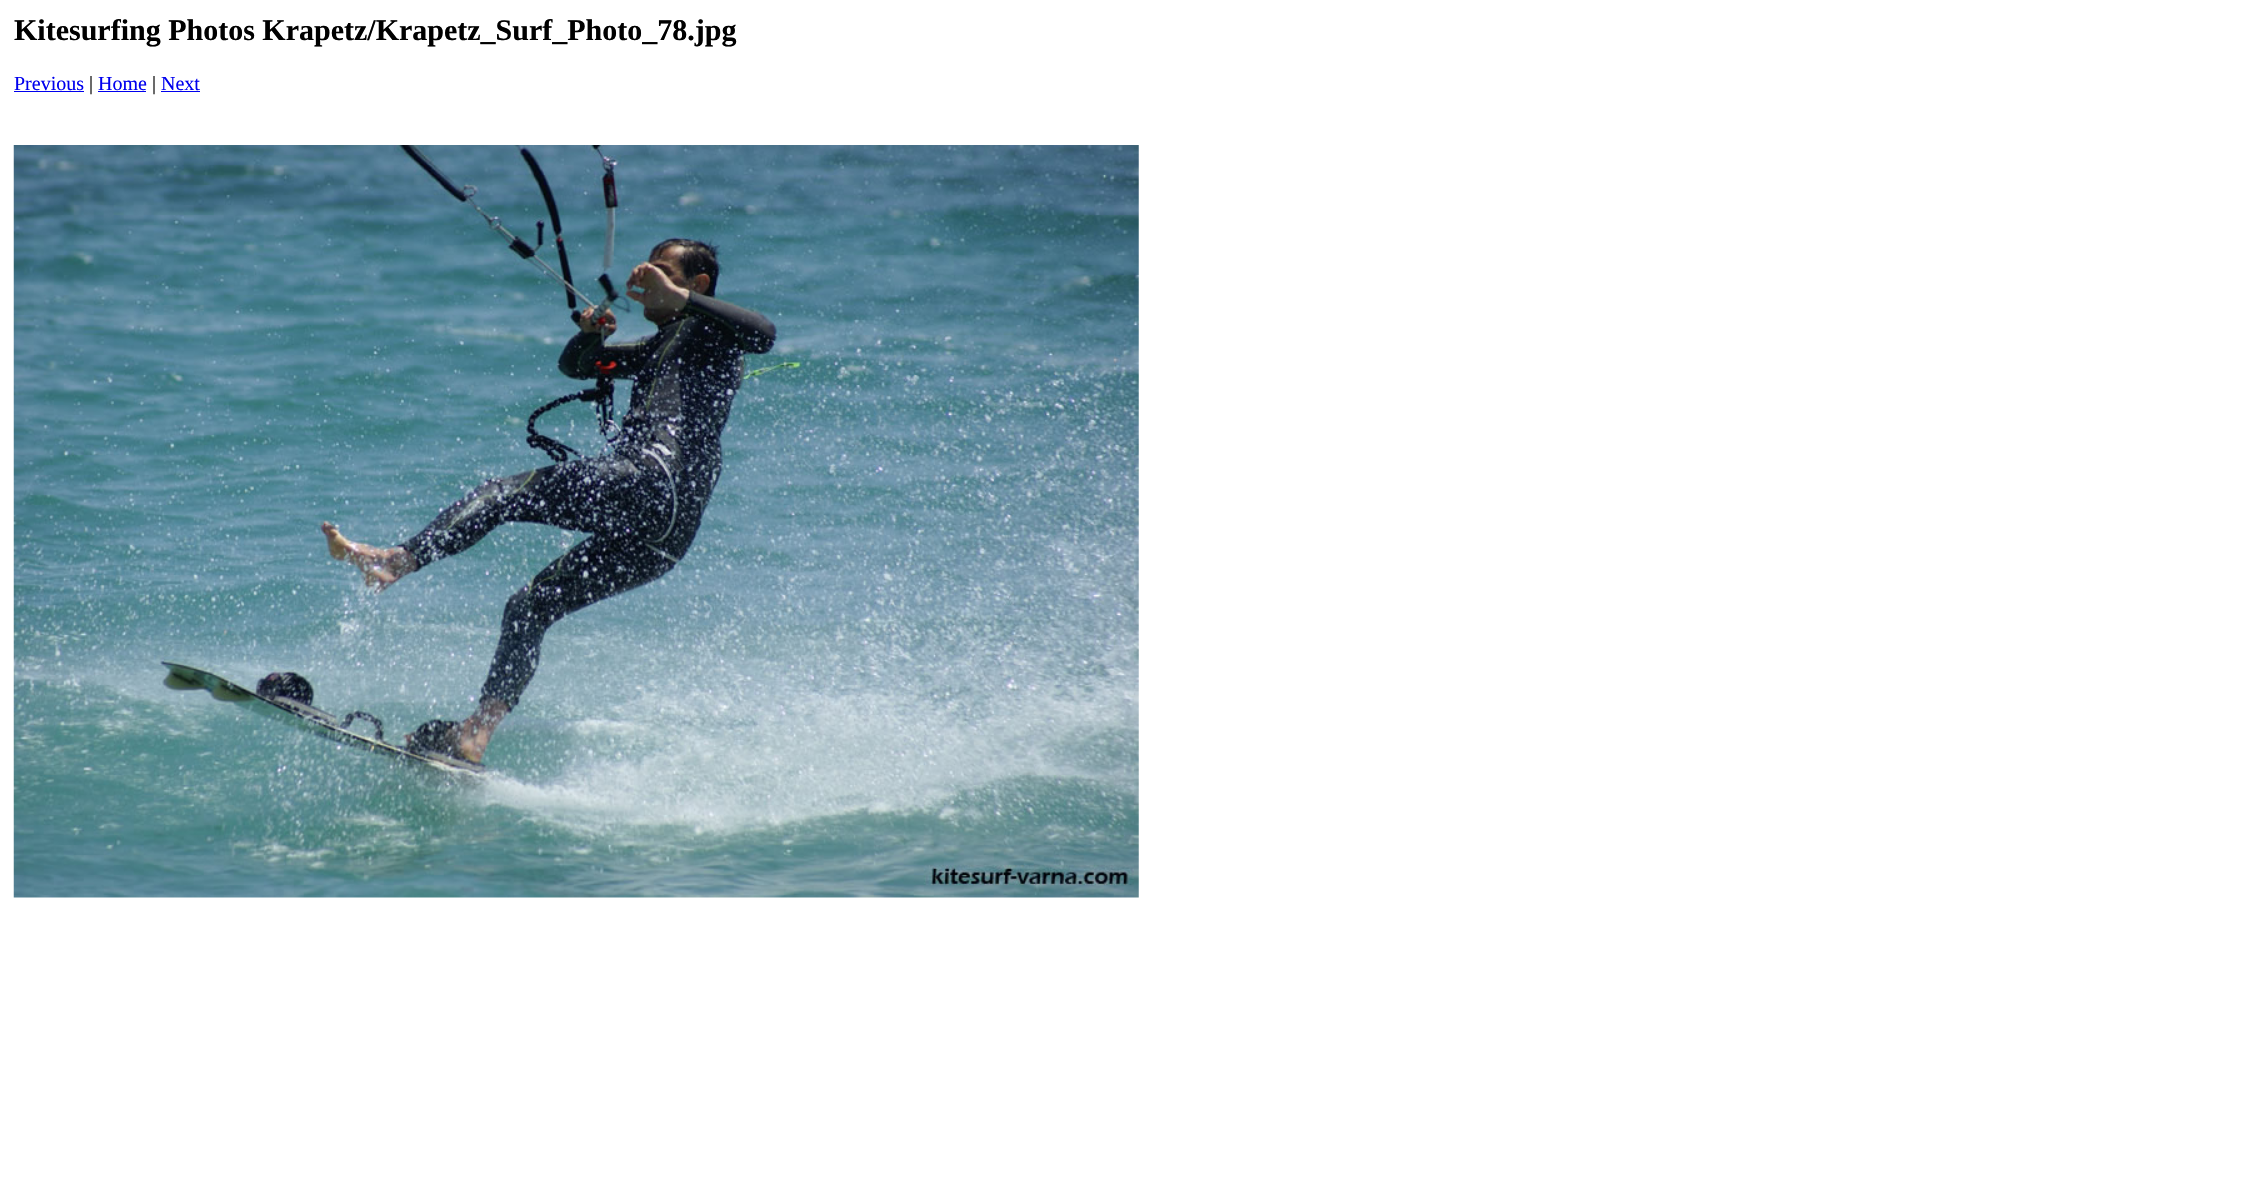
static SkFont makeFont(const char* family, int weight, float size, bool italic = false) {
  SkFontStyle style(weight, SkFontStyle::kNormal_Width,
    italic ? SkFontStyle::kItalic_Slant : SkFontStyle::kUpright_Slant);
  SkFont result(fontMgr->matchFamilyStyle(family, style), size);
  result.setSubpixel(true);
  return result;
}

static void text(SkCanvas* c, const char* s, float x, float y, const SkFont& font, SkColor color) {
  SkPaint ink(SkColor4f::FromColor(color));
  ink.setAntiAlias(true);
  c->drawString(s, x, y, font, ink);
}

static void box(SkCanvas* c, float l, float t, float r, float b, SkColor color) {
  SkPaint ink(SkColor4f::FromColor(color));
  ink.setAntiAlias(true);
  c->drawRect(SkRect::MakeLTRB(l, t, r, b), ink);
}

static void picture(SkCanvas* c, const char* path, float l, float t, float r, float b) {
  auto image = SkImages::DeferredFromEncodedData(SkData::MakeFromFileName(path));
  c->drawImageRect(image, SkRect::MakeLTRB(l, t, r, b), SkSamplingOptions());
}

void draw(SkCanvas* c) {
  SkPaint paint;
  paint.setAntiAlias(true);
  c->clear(0xffffffff);
  SkFont face1 = makeFont("Liberation Serif", 700, 30);
  text(c, "Kitesurfing Photos Krapetz/Krapetz_Surf_Photo_78.jpg", 14, 40, face1, 0xff000000);
  SkFont face2 = makeFont("Liberation Serif", 400, 20);
  text(c, "Previous", 14, 90, face2, 0xff0000ee);
  box(c, 14, 91, 84, 92, 0xff0000ee);
  text(c, "|", 89, 90, face2, 0xff000000);
  text(c, "Home", 98, 90, face2, 0xff0000ee);
  box(c, 98, 91, 146, 92, 0xff0000ee);
  text(c, "|", 152, 90, face2, 0xff000000);
  text(c, "Next", 161, 90, face2, 0xff0000ee);
  box(c, 161, 91, 200, 92, 0xff0000ee);
  picture(c, "img_01.png", 13, 145, 1139, 898);
}
